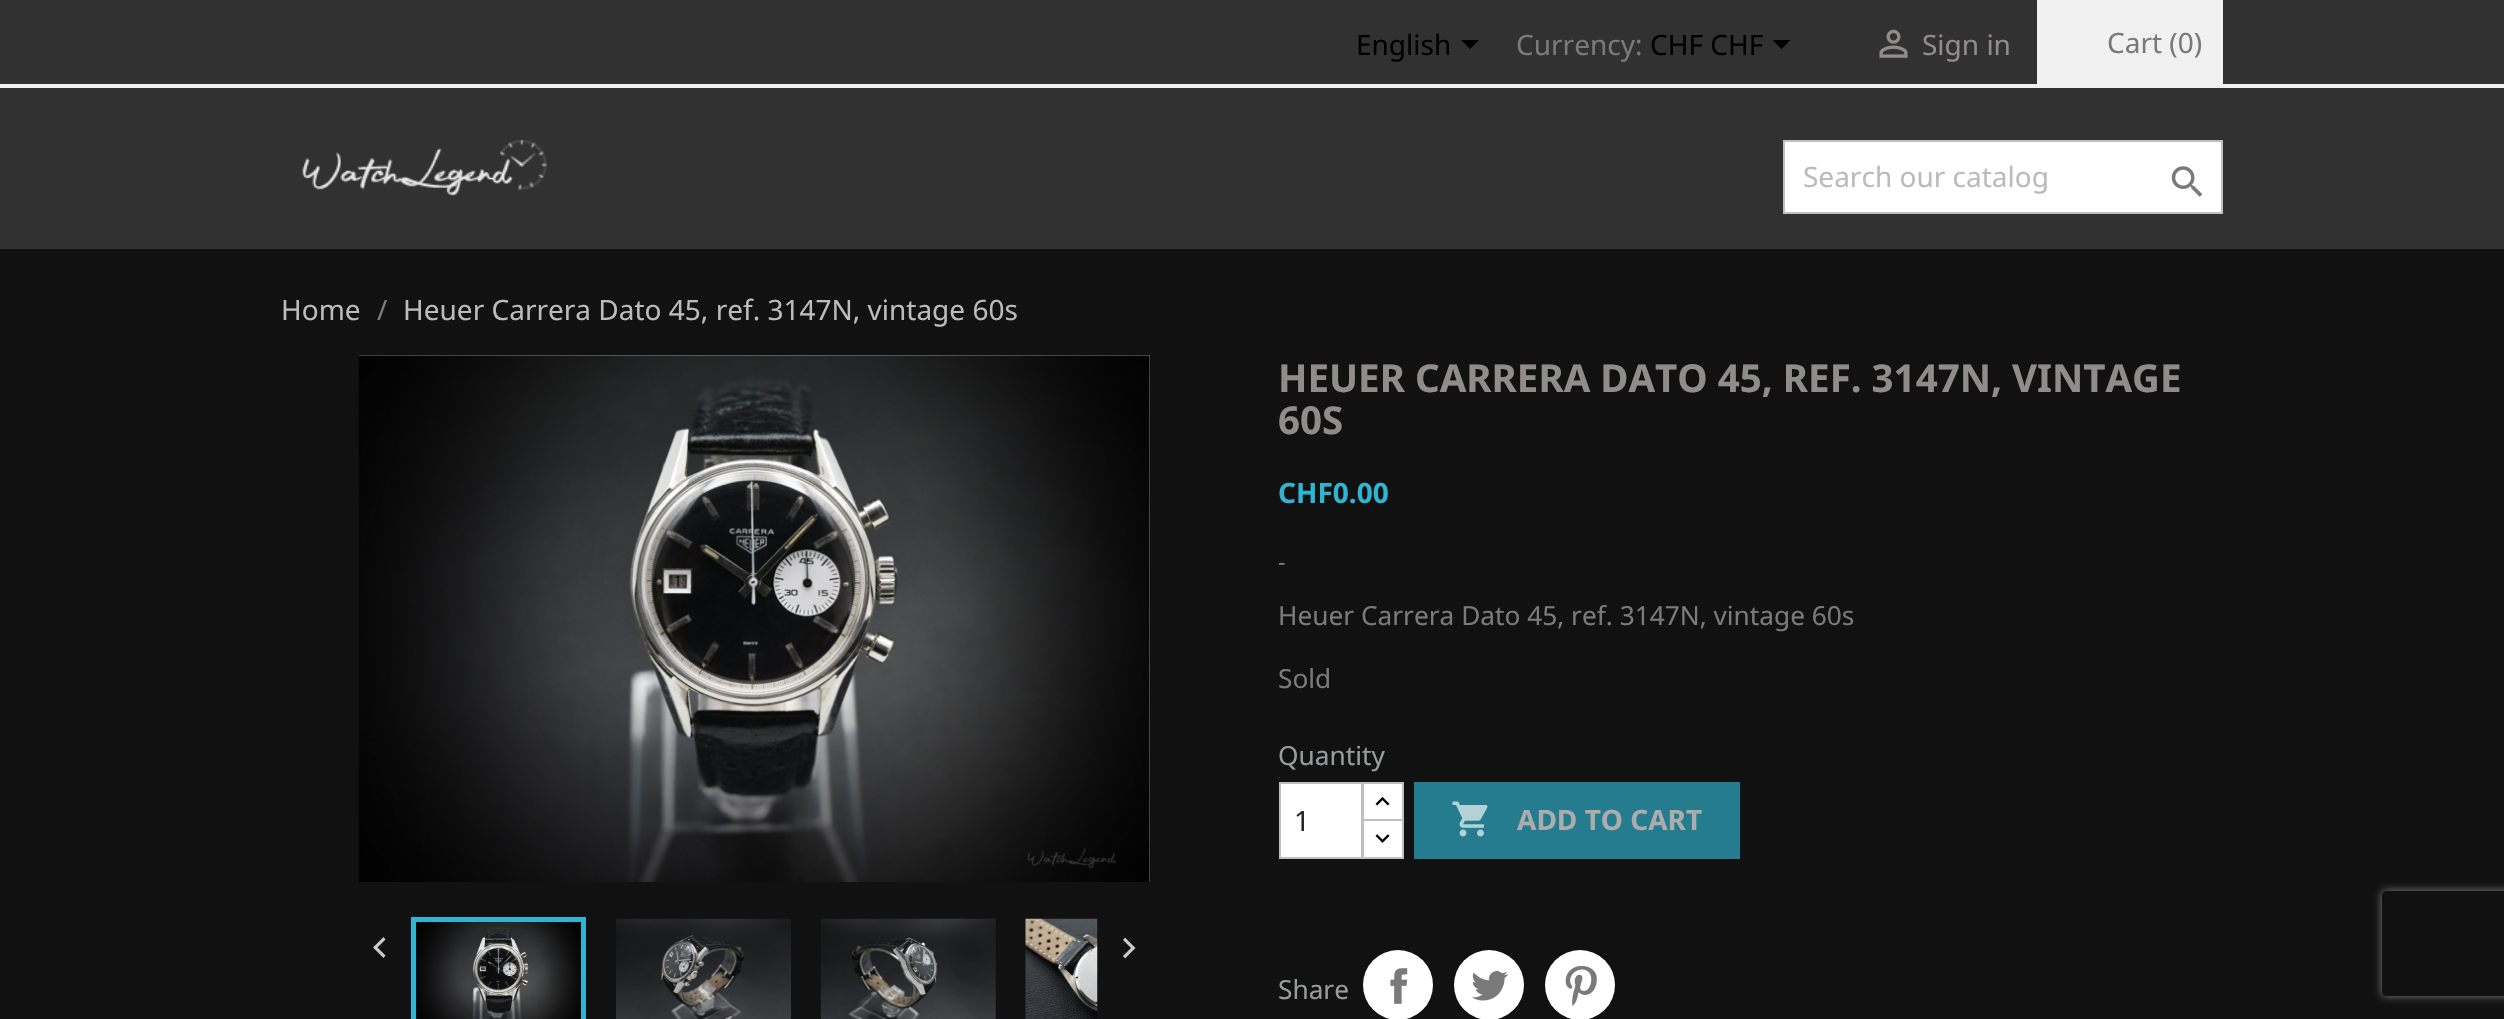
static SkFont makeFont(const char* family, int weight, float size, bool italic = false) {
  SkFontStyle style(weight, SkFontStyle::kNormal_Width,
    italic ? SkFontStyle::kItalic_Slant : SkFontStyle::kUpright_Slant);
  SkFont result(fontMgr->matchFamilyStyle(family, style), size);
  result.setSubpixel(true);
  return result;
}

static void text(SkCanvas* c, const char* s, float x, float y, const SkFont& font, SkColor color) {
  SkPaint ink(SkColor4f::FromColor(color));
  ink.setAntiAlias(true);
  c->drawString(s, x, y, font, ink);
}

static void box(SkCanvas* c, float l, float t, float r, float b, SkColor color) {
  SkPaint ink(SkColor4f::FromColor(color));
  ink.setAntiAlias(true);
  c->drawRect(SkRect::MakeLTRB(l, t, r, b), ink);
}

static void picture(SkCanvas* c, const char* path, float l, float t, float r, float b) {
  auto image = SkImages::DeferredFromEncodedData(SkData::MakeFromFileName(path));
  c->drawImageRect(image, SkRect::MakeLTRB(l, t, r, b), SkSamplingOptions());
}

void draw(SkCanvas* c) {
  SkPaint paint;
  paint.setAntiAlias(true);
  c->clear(0xff313131);
  box(c, 0, 84, 2504, 88, 0xfff1f1f1);
  SkFont face1 = makeFont("Noto Sans", 400, 28);
  text(c, "English", 1356, 55, face1, 0xff000000);
  paint.setColor(0xff000000);
  c->drawPath(SkPathBuilder().moveTo(1461, 40).lineTo(1479, 40).lineTo(1470, 49).close().detach(), paint);
  text(c, "Currency:", 1516, 55, face1, 0xff7a7a7a);
  text(c, "CHF CHF", 1650, 55, face1, 0xff000000);
  c->drawPath(SkPathBuilder().moveTo(1772.5f, 40).lineTo(1790.5f, 40).lineTo(1781.5f, 49).close().detach(), paint);
  picture(c, "img_01.png", 1879, 29, 1908, 58);
  text(c, "Sign in", 1922, 55, face1, 0xff918c8c);
  box(c, 2037, 0, 2223, 84, 0xfff1f1f1);
  text(c, "Cart (0)", 2107, 53, face1, 0xff7a7a7a);
  picture(c, "img_02.png", 302, 140, 547, 196);
  paint.setColor(0xffffffff);
  c->drawRect(SkRect::MakeLTRB(1784, 141, 2222, 213), paint);
  paint.setStyle(SkPaint::kStroke_Style);
  paint.setStrokeWidth(2);
  paint.setColor(0xffbfbfbf);
  c->drawRect(SkRect::MakeLTRB(1784, 141, 2222, 213), paint);
  text(c, "Search our catalog", 1803, 187, face1, 0xffbbbbbb);
  picture(c, "img_03.png", 2171, 166, 2203, 197);
  box(c, 0, 249, 2504, 1019, 0xff111111);
  text(c, "Home", 281, 320, face1, 0xffbbbbbb);
  text(c, "/", 377, 320, face1, 0xff7a7a7a);
  text(c, "Heuer Carrera Dato 45, ref. 3147N, vintage 60s", 403, 320, face1, 0xffbbbbbb);
  box(c, 359, 355, 1150, 882, 0xffffffff);
  picture(c, "img_04.png", 358, 355, 1150, 882);
  paint.setStrokeWidth(5);
  paint.setColor(0xff2fb5d2);
  c->drawRect(SkRect::MakeLTRB(413.5f, 919.5f, 583.5f, 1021.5f), paint);
  picture(c, "img_05.png", 616, 918, 791, 1019);
  picture(c, "img_06.png", 820, 918, 996, 1019);
  picture(c, "img_07.png", 1025, 918, 1098, 1019);
  picture(c, "img_08.png", 416, 922, 581, 1019);
  paint.setStyle(SkPaint::kFill_Style);
  paint.setColor(0xffcacaca);
  c->drawPath(SkPathBuilder().moveTo(385.5f, 955.5f).lineTo(383.5f, 958).lineTo(373, 947.5f).lineTo(383.5f, 937).lineTo(385.5f, 939.5f).lineTo(377.5f, 947.5f).close().detach(), paint);
  c->drawPath(SkPathBuilder().moveTo(1123, 956).lineTo(1131, 948).lineTo(1123, 940).lineTo(1125, 937.5f).lineTo(1135.5f, 948).lineTo(1125, 958.5f).close().detach(), paint);
  SkFont face2 = makeFont("Noto Sans", 700, 38.5f);
  text(c, "HEUER CARRERA DATO 45, REF. 3147N, VINTAGE", 1278, 392, face2, 0xff918c8c);
  text(c, "60S", 1278, 434, face2, 0xff918c8c);
  SkFont face3 = makeFont("Noto Sans", 700, 28);
  text(c, "CHF0.00", 1278, 503, face3, 0xff2fb5d2);
  SkFont face4 = makeFont("Noto Sans", 400, 23);
  text(c, "-", 1278, 570, face4, 0xff7a7a7a);
  SkFont face5 = makeFont("Noto Sans", 400, 26.25f);
  text(c, "Heuer Carrera Dato 45, ref. 3147N, vintage 60s", 1278, 625, face5, 0xff7a7a7a);
  text(c, "Sold", 1278, 688, face5, 0xff7a7a7a);
  text(c, "Quantity", 1278, 765, face5, 0xff979d9d);
  box(c, 1364, 784, 1402, 819, 0xffffffff);
  paint.setStyle(SkPaint::kStroke_Style);
  paint.setStrokeWidth(2);
  paint.setColor(0xffbfbfbf);
  c->drawRect(SkRect::MakeLTRB(1363, 783, 1403, 822), paint);
  paint.setStyle(SkPaint::kFill_Style);
  paint.setColor(0xffffffff);
  c->drawRect(SkRect::MakeLTRB(1363, 820, 1403, 858), paint);
  paint.setStyle(SkPaint::kStroke_Style);
  paint.setColor(0xffbfbfbf);
  c->drawRect(SkRect::MakeLTRB(1363, 820, 1403, 858), paint);
  paint.setStyle(SkPaint::kFill_Style);
  paint.setColor(0xffffffff);
  c->drawRect(SkRect::MakeLTRB(1280, 783, 1362, 858), paint);
  paint.setStyle(SkPaint::kStroke_Style);
  paint.setColor(0xffbfbfbf);
  c->drawRect(SkRect::MakeLTRB(1280, 783, 1362, 858), paint);
  text(c, "1", 1294, 831, face1, 0xff232323);
  picture(c, "img_09.png", 1375, 797, 1390, 806);
  picture(c, "img_10.png", 1375, 834, 1390, 843);
  box(c, 1414, 782, 1740, 859, 0xff247c8e);
  picture(c, "img_11.png", 1452, 801, 1488, 837);
  text(c, "ADD TO CART", 1517, 830, face3, 0xffacacac);
  text(c, "Share", 1278, 999, face5, 0xff979d9d);
  paint.setStyle(SkPaint::kFill_Style);
  paint.setColor(0xffffffff);
  c->drawCircle(1398, 985, 35, paint);
  picture(c, "img_12.png", 1390, 968, 1408, 1004);
  c->drawCircle(1489, 985, 35, paint);
  picture(c, "img_13.png", 1472, 970, 1508, 1001);
  c->drawCircle(1580, 985, 35, paint);
  picture(c, "img_14.png", 1565, 965, 1597, 1006);
  c->save();
  c->clipPath(SkPathBuilder(SkPathFillType::kEvenOdd).moveTo(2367, 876).lineTo(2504, 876).lineTo(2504, 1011).lineTo(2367, 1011).close().moveTo(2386, 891).lineTo(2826, 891).cubicTo(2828, 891, 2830, 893, 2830, 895).lineTo(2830, 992).cubicTo(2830, 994, 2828, 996, 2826, 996).lineTo(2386, 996).cubicTo(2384, 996, 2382, 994, 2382, 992).lineTo(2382, 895).cubicTo(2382, 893, 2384, 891, 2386, 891).close().detach(), true);
  paint.setColor(0xff808080);
  paint.setMaskFilter(SkMaskFilter::MakeBlur(kNormal_SkBlurStyle, 4.5f));
  c->drawRoundRect(SkRect::MakeLTRB(2382, 891, 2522, 996), 4, 4, paint);
  paint.setMaskFilter(nullptr);
  c->restore();
}
